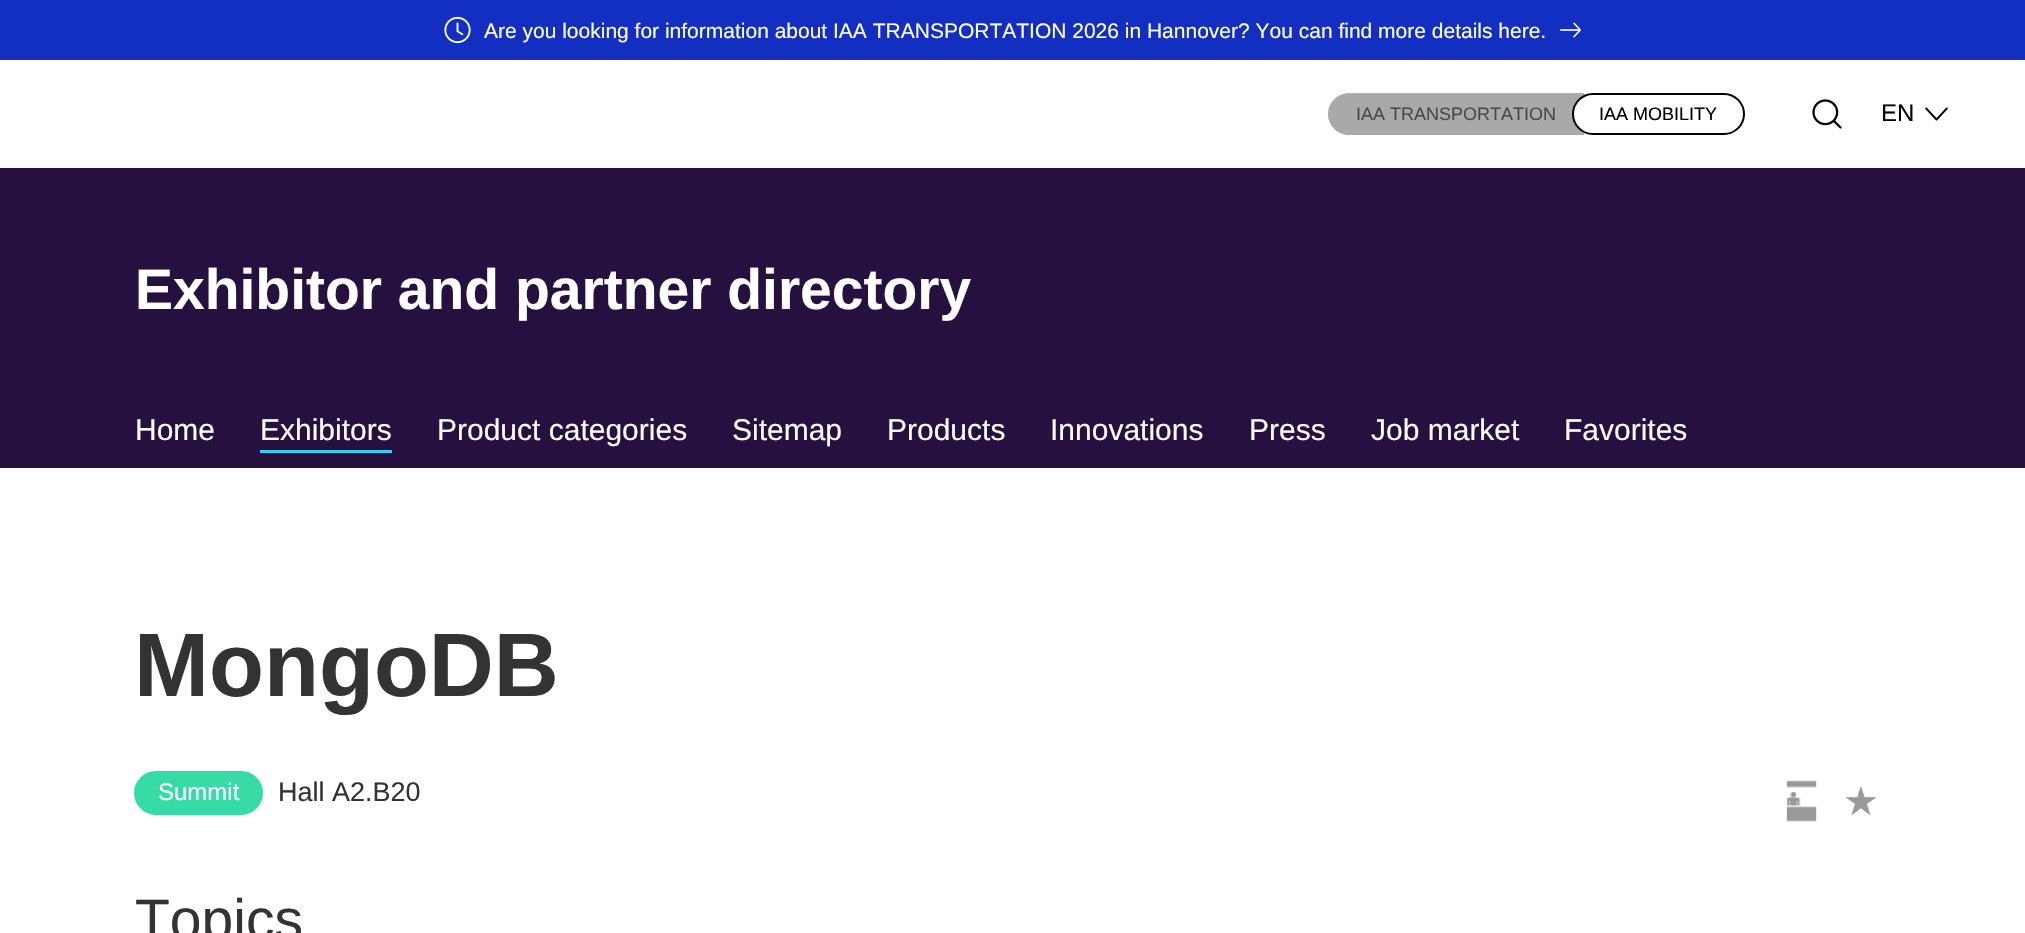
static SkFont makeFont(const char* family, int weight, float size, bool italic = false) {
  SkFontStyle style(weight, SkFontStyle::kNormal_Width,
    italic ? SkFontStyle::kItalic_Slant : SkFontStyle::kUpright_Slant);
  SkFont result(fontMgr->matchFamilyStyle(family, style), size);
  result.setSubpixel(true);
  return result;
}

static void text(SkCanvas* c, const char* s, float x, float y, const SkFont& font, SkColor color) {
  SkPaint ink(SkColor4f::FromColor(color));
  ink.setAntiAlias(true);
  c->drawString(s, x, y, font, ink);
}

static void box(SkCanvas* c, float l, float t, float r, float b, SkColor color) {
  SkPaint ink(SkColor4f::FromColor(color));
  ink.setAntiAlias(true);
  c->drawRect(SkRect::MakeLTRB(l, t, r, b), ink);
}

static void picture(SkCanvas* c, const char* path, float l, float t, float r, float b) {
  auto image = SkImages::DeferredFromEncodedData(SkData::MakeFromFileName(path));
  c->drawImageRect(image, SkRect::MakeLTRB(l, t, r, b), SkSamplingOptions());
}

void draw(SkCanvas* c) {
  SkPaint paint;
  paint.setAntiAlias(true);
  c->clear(0xffffffff);
  box(c, 0, 0, 2025, 60, 0xff132fc2);
  picture(c, "img_01.png", 444, 16, 471, 44);
  SkFont face1 = makeFont("Liberation Sans", 400, 21);
  text(c, "Are you looking for information about IAA TRANSPORTATION 2026 in Hannover? You can find more details here.", 484, 38, face1, 0xffffffff);
  picture(c, "img_02.png", 1560, 22, 1581, 38);
  paint.setColor(0xfff2f2f2);
  c->drawRoundRect(SkRect::MakeLTRB(1327, 93, 1745, 136), 21.5f, 21.5f, paint);
  paint.setStyle(SkPaint::kStroke_Style);
  paint.setStrokeWidth(2);
  paint.setColor(0xffffffff);
  c->drawRoundRect(SkRect::MakeLTRB(1327, 93, 1745, 136), 21.5f, 21.5f, paint);
  paint.setStyle(SkPaint::kFill_Style);
  paint.setColor(0x4d000000);
  c->drawPath(SkPathBuilder().moveTo(1349, 93).lineTo(1584, 93).lineTo(1584, 135).lineTo(1349, 135).cubicTo(1337.5f, 135, 1328, 125.5f, 1328, 114).cubicTo(1328, 102.5f, 1337.5f, 93, 1349, 93).close().detach(), paint);
  SkFont face2 = makeFont("Liberation Sans", 400, 18);
  text(c, "IAA TRANSPORTATION", 1356, 120, face2, 0xff494949);
  paint.setColor(0xffffffff);
  c->drawRoundRect(SkRect::MakeLTRB(1573, 94, 1744, 134), 20, 20, paint);
  paint.setStyle(SkPaint::kStroke_Style);
  paint.setColor(0xff000000);
  c->drawRoundRect(SkRect::MakeLTRB(1573, 94, 1744, 134), 20, 20, paint);
  text(c, "IAA MOBILITY", 1599, 120, face2, 0xff000000);
  picture(c, "img_03.png", 1812, 99, 1842, 129);
  SkFont face3 = makeFont("Liberation Sans", 400, 24);
  text(c, "EN", 1881, 121, face3, 0xff000000);
  picture(c, "img_04.png", 1925, 107, 1948, 121);
  box(c, 0, 168, 2025, 468, 0xff26103f);
  SkFont face4 = makeFont("Liberation Sans", 700, 57);
  text(c, "Exhibitor and partner directory", 135, 309, face4, 0xffffffff);
  SkFont face5 = makeFont("Liberation Sans", 400, 30);
  text(c, "Home", 135, 440, face5, 0xffffffff);
  box(c, 260, 450, 392, 453, 0xff2ed1f7);
  text(c, "Exhibitors", 260, 440, face5, 0xffffffff);
  text(c, "Product categories", 437, 440, face5, 0xffffffff);
  text(c, "Sitemap", 732, 440, face5, 0xffffffff);
  text(c, "Products", 887, 440, face5, 0xffffffff);
  text(c, "Innovations", 1050, 440, face5, 0xffffffff);
  text(c, "Press", 1249, 440, face5, 0xffffffff);
  text(c, "Job market", 1371, 440, face5, 0xffffffff);
  text(c, "Favorites", 1564, 440, face5, 0xffffffff);
  SkFont face6 = makeFont("Liberation Sans", 700, 90);
  text(c, "MongoDB", 134, 696, face6, 0xff333333);
  paint.setStyle(SkPaint::kFill_Style);
  paint.setColor(0xff36dba6);
  c->drawRoundRect(SkRect::MakeLTRB(135, 772, 262, 814), 21, 21, paint);
  paint.setStyle(SkPaint::kStroke_Style);
  c->drawRoundRect(SkRect::MakeLTRB(135, 772, 262, 814), 21, 21, paint);
  text(c, "Summit", 158, 800, face3, 0xffffffff);
  SkFont face7 = makeFont("Liberation Sans", 400, 27);
  text(c, "Hall A2.B20", 278, 801, face7, 0xff333333);
  picture(c, "img_05.png", 1786, 780, 1817, 822);
  SkFont face8 = makeFont("DejaVu Sans", 400, 40);
  text(c, "★", 1843, 815, face8, 0xff999999);
  SkFont face9 = makeFont("Liberation Sans", 400, 57);
  text(c, "Topics", 135, 939, face9, 0xff333333);
}
